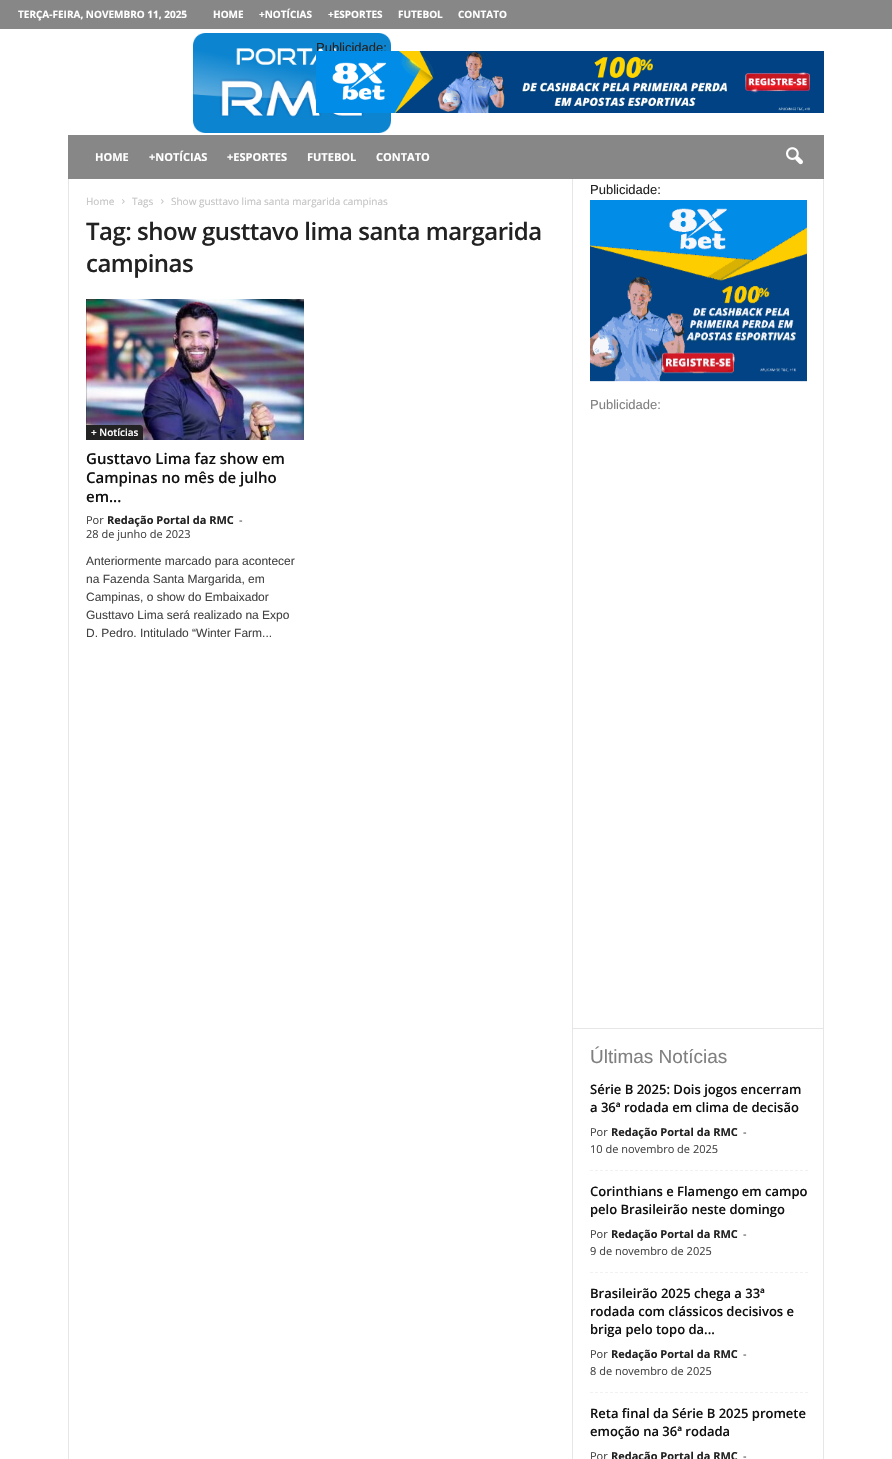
static SkFont makeFont(const char* family, int weight, float size, bool italic = false) {
  SkFontStyle style(weight, SkFontStyle::kNormal_Width,
    italic ? SkFontStyle::kItalic_Slant : SkFontStyle::kUpright_Slant);
  SkFont result(fontMgr->matchFamilyStyle(family, style), size);
  result.setSubpixel(true);
  return result;
}

static void text(SkCanvas* c, const char* s, float x, float y, const SkFont& font, SkColor color) {
  SkPaint ink(SkColor4f::FromColor(color));
  ink.setAntiAlias(true);
  c->drawString(s, x, y, font, ink);
}

static void spacedText(SkCanvas* c, const char* s, float x, float y, const SkFont& font, const SkPaint& ink, float letter, float word) {
  std::vector<SkGlyphID> glyphs(font.countText(s, strlen(s), SkTextEncoding::kUTF8));
  std::vector<float> xs(glyphs.size());
  font.textToGlyphs(s, strlen(s), SkTextEncoding::kUTF8, glyphs);
  font.getXPos(glyphs, xs, x);
  float extra = 0;
  for (size_t i = 0; i < glyphs.size(); i++) {
    xs[i] += extra;
    extra += letter + word * (glyphs[i] == font.unicharToGlyph(' '));
  }
  c->drawTextBlob(SkTextBlob::MakeFromPosHGlyphs(glyphs, xs, y, font), 0, 0, ink);
}

static void box(SkCanvas* c, float l, float t, float r, float b, SkColor color) {
  SkPaint ink(SkColor4f::FromColor(color));
  ink.setAntiAlias(true);
  c->drawRect(SkRect::MakeLTRB(l, t, r, b), ink);
}

static void picture(SkCanvas* c, const char* path, float l, float t, float r, float b) {
  auto image = SkImages::DeferredFromEncodedData(SkData::MakeFromFileName(path));
  c->drawImageRect(image, SkRect::MakeLTRB(l, t, r, b), SkSamplingOptions());
}

void draw(SkCanvas* c) {
  SkPaint paint;
  paint.setAntiAlias(true);
  c->clear(0xffffffff);
  box(c, 0, 0, 892, 29, 0xff878787);
  SkFont face1 = makeFont("Open Sans", 700, 10);
  text(c, "TERÇA-FEIRA, NOVEMBRO 11, 2025", 18, 18, face1, 0xffffffff);
  text(c, "HOME", 213, 18, face1, 0xffffffff);
  text(c, "+NOTÍCIAS", 259, 18, face1, 0xffffffff);
  text(c, "+ESPORTES", 328, 18, face1, 0xffffffff);
  text(c, "FUTEBOL", 398, 18, face1, 0xffffffff);
  text(c, "CONTATO", 458, 18, face1, 0xffffffff);
  picture(c, "img_01.png", 193, 33, 391, 133);
  SkFont face2 = makeFont("Liberation Sans", 400, 13);
  text(c, "Publicidade:", 316, 52, face2, 0xff222222);
  picture(c, "img_02.png", 316, 51, 824, 113);
  box(c, 68, 135, 824, 179, 0xff878787);
  SkFont face3 = makeFont("Open Sans", 700, 11);
  text(c, "HOME", 95, 161, face3, 0xffffffff);
  text(c, "+NOTÍCIAS", 149, 161, face3, 0xffffffff);
  text(c, "+ESPORTES", 227, 161, face3, 0xffffffff);
  text(c, "FUTEBOL", 307, 161, face3, 0xffffffff);
  text(c, "CONTATO", 376, 161, face3, 0xffffffff);
  picture(c, "img_03.png", 786, 147, 803, 165);
  box(c, 68, 179, 69, 1459, 0xffe6e6e6);
  SkFont face4 = makeFont("Open Sans", 400, 10);
  text(c, "Home", 86, 205, face4, 0xffc3c3c3);
  picture(c, "img_04.png", 122, 199, 125, 204);
  text(c, "Tags", 132, 205, face4, 0xffc3c3c3);
  picture(c, "img_04.png", 161, 199, 164, 204);
  text(c, "Show gusttavo lima santa margarida campinas", 171, 205, face4, 0xffc3c3c3);
  SkFont face5 = makeFont("Open Sans", 600, 24);
  paint.setColor(0xff222222);
  spacedText(c, "Tag: show gusttavo lima santa margarida", 86, 240, face5, paint, -0.5f, 0);
  spacedText(c, "campinas", 86, 272, face5, paint, -0.5f, 0);
  picture(c, "img_05.png", 86, 299, 304, 440);
  c->drawPath(SkPathBuilder().moveTo(86, 425).lineTo(140, 425).cubicTo(141.5f, 425, 143, 426.5f, 143, 428).lineTo(143, 440).lineTo(86, 440).close().detach(), paint);
  SkFont face6 = makeFont("Open Sans", 600, 10);
  text(c, "+ Notícias", 91, 436, face6, 0xffffffff);
  SkFont face7 = makeFont("Open Sans", 600, 15);
  text(c, "Gusttavo Lima faz show em", 86, 464, face7, 0xff111111);
  text(c, "Campinas no mês de julho", 86, 483, face7, 0xff111111);
  text(c, "em...", 86, 502, face7, 0xff111111);
  SkFont face8 = makeFont("Open Sans", 400, 11);
  text(c, "Por", 86, 524, face8, 0xff444444);
  text(c, "Redação Portal da RMC", 107, 524, face3, 0xff222222);
  text(c, "-", 239, 524, face8, 0xff444444);
  text(c, "28 de junho de 2023", 86, 538, face8, 0xff444444);
  SkFont face9 = makeFont("Liberation Sans", 400, 12);
  text(c, "Anteriormente marcado para acontecer", 86, 565, face9, 0xff444444);
  text(c, "na Fazenda Santa Margarida, em", 86, 583, face9, 0xff444444);
  text(c, "Campinas, o show do Embaixador", 86, 601, face9, 0xff444444);
  text(c, "Gusttavo Lima será realizado na Expo", 86, 619, face9, 0xff444444);
  text(c, "D. Pedro. Intitulado “Winter Farm...", 86, 637, face9, 0xff444444);
  box(c, 572, 179, 573, 1459, 0xffe6e6e6);
  text(c, "Publicidade:", 590, 194, face2, 0xff222222);
  picture(c, "img_06.png", 590, 200, 807, 382);
  text(c, "Publicidade:", 590, 409, face2, 0xff808080);
  box(c, 823, 179, 824, 1459, 0xffe6e6e6);
  box(c, 573, 1028, 824, 1029, 0xffe6e6e6);
  SkFont face10 = makeFont("Liberation Sans", 400, 19);
  text(c, "Últimas Notícias", 590, 1063, face10, 0xff808080);
  paint.setStyle(SkPaint::kStroke_Style);
  paint.setStrokeWidth(1);
  paint.setColor(0xfff1f1f1);
  paint.setPathEffect(SkDashPathEffect::Make({{3, 2}}, 0));
  c->drawPath(SkPathBuilder().moveTo(590, 1170.5f).lineTo(808, 1170.5f).detach(), paint);
  paint.setPathEffect(nullptr);
  SkFont face11 = makeFont("Open Sans", 600, 13);
  text(c, "Série B 2025: Dois jogos encerram", 590, 1094, face11, 0xff111111);
  text(c, "a 36ª rodada em clima de decisão", 590, 1112, face11, 0xff111111);
  text(c, "Por", 590, 1136, face8, 0xff444444);
  text(c, "Redação Portal da RMC", 611, 1136, face3, 0xff222222);
  text(c, "-", 743, 1136, face8, 0xff444444);
  text(c, "10 de novembro de 2025", 590, 1153, face8, 0xff444444);
  paint.setPathEffect(SkDashPathEffect::Make({{3, 2}}, 0));
  c->drawPath(SkPathBuilder().moveTo(590, 1272.5f).lineTo(808, 1272.5f).detach(), paint);
  paint.setPathEffect(nullptr);
  text(c, "Corinthians e Flamengo em campo", 590, 1196, face11, 0xff111111);
  text(c, "pelo Brasileirão neste domingo", 590, 1214, face11, 0xff111111);
  text(c, "Por", 590, 1238, face8, 0xff444444);
  text(c, "Redação Portal da RMC", 611, 1238, face3, 0xff222222);
  text(c, "-", 743, 1238, face8, 0xff444444);
  text(c, "9 de novembro de 2025", 590, 1255, face8, 0xff444444);
  paint.setPathEffect(SkDashPathEffect::Make({{3, 2}}, 0));
  c->drawPath(SkPathBuilder().moveTo(590, 1392.5f).lineTo(808, 1392.5f).detach(), paint);
  paint.setPathEffect(nullptr);
  text(c, "Brasileirão 2025 chega a 33ª", 590, 1298, face11, 0xff111111);
  text(c, "rodada com clássicos decisivos e", 590, 1316, face11, 0xff111111);
  text(c, "briga pelo topo da...", 590, 1334, face11, 0xff111111);
  text(c, "Por", 590, 1358, face8, 0xff444444);
  text(c, "Redação Portal da RMC", 611, 1358, face3, 0xff222222);
  text(c, "-", 743, 1358, face8, 0xff444444);
  text(c, "8 de novembro de 2025", 590, 1375, face8, 0xff444444);
  text(c, "Reta final da Série B 2025 promete", 590, 1418, face11, 0xff111111);
  text(c, "emoção na 36ª rodada", 590, 1436, face11, 0xff111111);
  text(c, "Por", 590, 1460, face8, 0xff444444);
  text(c, "Redação Portal da RMC", 611, 1460, face3, 0xff222222);
  text(c, "-", 743, 1460, face8, 0xff444444);
}
